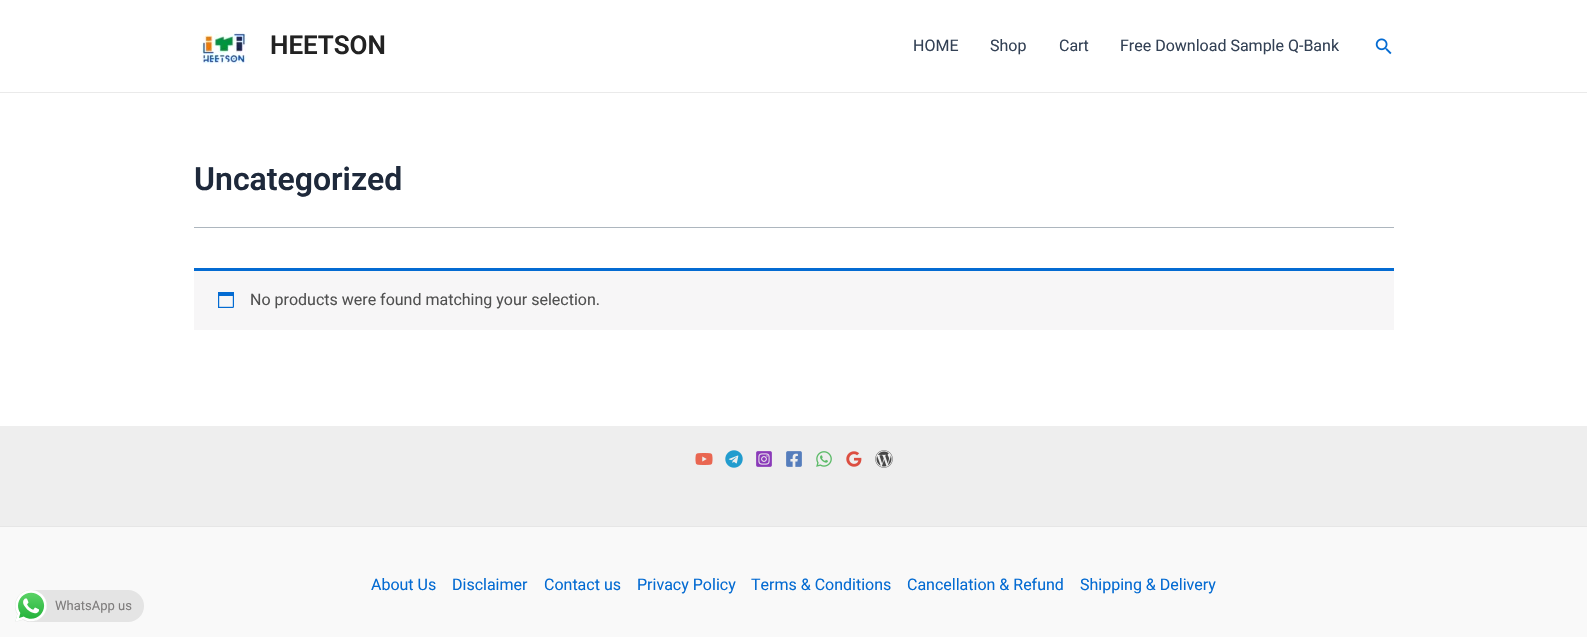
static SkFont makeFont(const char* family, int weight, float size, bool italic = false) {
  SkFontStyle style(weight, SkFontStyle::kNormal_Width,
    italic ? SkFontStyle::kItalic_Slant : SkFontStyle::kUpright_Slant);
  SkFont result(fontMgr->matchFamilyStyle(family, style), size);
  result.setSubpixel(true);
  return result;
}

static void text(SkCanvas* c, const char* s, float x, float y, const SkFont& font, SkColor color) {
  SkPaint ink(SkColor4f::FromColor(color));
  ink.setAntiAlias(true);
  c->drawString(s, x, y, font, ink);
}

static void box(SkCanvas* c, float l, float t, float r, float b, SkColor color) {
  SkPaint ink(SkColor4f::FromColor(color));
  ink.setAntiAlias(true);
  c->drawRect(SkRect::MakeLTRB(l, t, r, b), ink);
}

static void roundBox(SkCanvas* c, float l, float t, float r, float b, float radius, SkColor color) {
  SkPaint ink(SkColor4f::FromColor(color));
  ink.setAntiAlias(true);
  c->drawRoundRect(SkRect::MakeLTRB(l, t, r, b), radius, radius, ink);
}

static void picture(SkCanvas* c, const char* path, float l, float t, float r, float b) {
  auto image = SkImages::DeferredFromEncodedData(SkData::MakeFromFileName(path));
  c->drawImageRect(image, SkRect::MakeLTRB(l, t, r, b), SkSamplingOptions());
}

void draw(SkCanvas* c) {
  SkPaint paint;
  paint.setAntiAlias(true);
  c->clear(0xffffffff);
  box(c, 0, 92, 1587, 93, 0xffeaeaea);
  picture(c, "img_01.png", 201, 32, 250, 64);
  SkFont face1 = makeFont("Roboto", 600, 26);
  text(c, "HEETSON", 270, 54, face1, 0xff222222);
  SkFont face2 = makeFont("Roboto", 400, 16);
  text(c, "HOME", 913, 51, face2, 0xff334155);
  text(c, "Shop", 990, 51, face2, 0xff334155);
  text(c, "Cart", 1059, 51, face2, 0xff334155);
  text(c, "Free Download Sample Q-Bank", 1120, 51, face2, 0xff334155);
  picture(c, "img_02.png", 1375, 38, 1392, 55);
  box(c, 194, 227, 1394, 228, 0xffadb6be);
  SkFont face3 = makeFont("Roboto", 600, 32);
  text(c, "Uncategorized", 194, 190, face3, 0xff1e293b);
  box(c, 194, 271, 1394, 330, 0xfff7f6f7);
  box(c, 194, 268, 1394, 271, 0xff046bd2);
  picture(c, "img_03.png", 218, 292, 234, 308);
  text(c, "No products were found matching your selection.", 250, 305, face2, 0xff515151);
  box(c, 0, 426, 1587, 526, 0xffeeeeee);
  picture(c, "img_04.png", 695, 453, 713, 465);
  picture(c, "img_05.png", 725, 450, 743, 468);
  picture(c, "img_06.png", 756, 451, 772, 467);
  picture(c, "img_07.png", 786, 451, 802, 467);
  picture(c, "img_08.png", 816, 451, 832, 467);
  picture(c, "img_09.png", 846, 451, 862, 467);
  picture(c, "img_10.png", 875, 450, 893, 468);
  box(c, 0, 527, 1587, 637, 0xfff9f9f9);
  box(c, 0, 526, 1587, 527, 0xffe6e6e6);
  text(c, "About Us", 371, 590, face2, 0xff046bd2);
  text(c, "Disclaimer", 452, 590, face2, 0xff046bd2);
  text(c, "Contact us", 544, 590, face2, 0xff046bd2);
  text(c, "Privacy Policy", 637, 590, face2, 0xff046bd2);
  text(c, "Terms & Conditions", 751, 590, face2, 0xff046bd2);
  text(c, "Cancellation & Refund", 907, 590, face2, 0xff046bd2);
  text(c, "Shipping & Delivery", 1080, 590, face2, 0xff046bd2);
  roundBox(c, 15, 590, 144, 622, 16, 0xffe4e4e4);
  picture(c, "img_11.png", 15, 590, 47, 622);
  SkFont face4 = makeFont("Roboto", 400, 13);
  text(c, "WhatsApp us", 55, 610, face4, 0xff7f7d7d);
}
